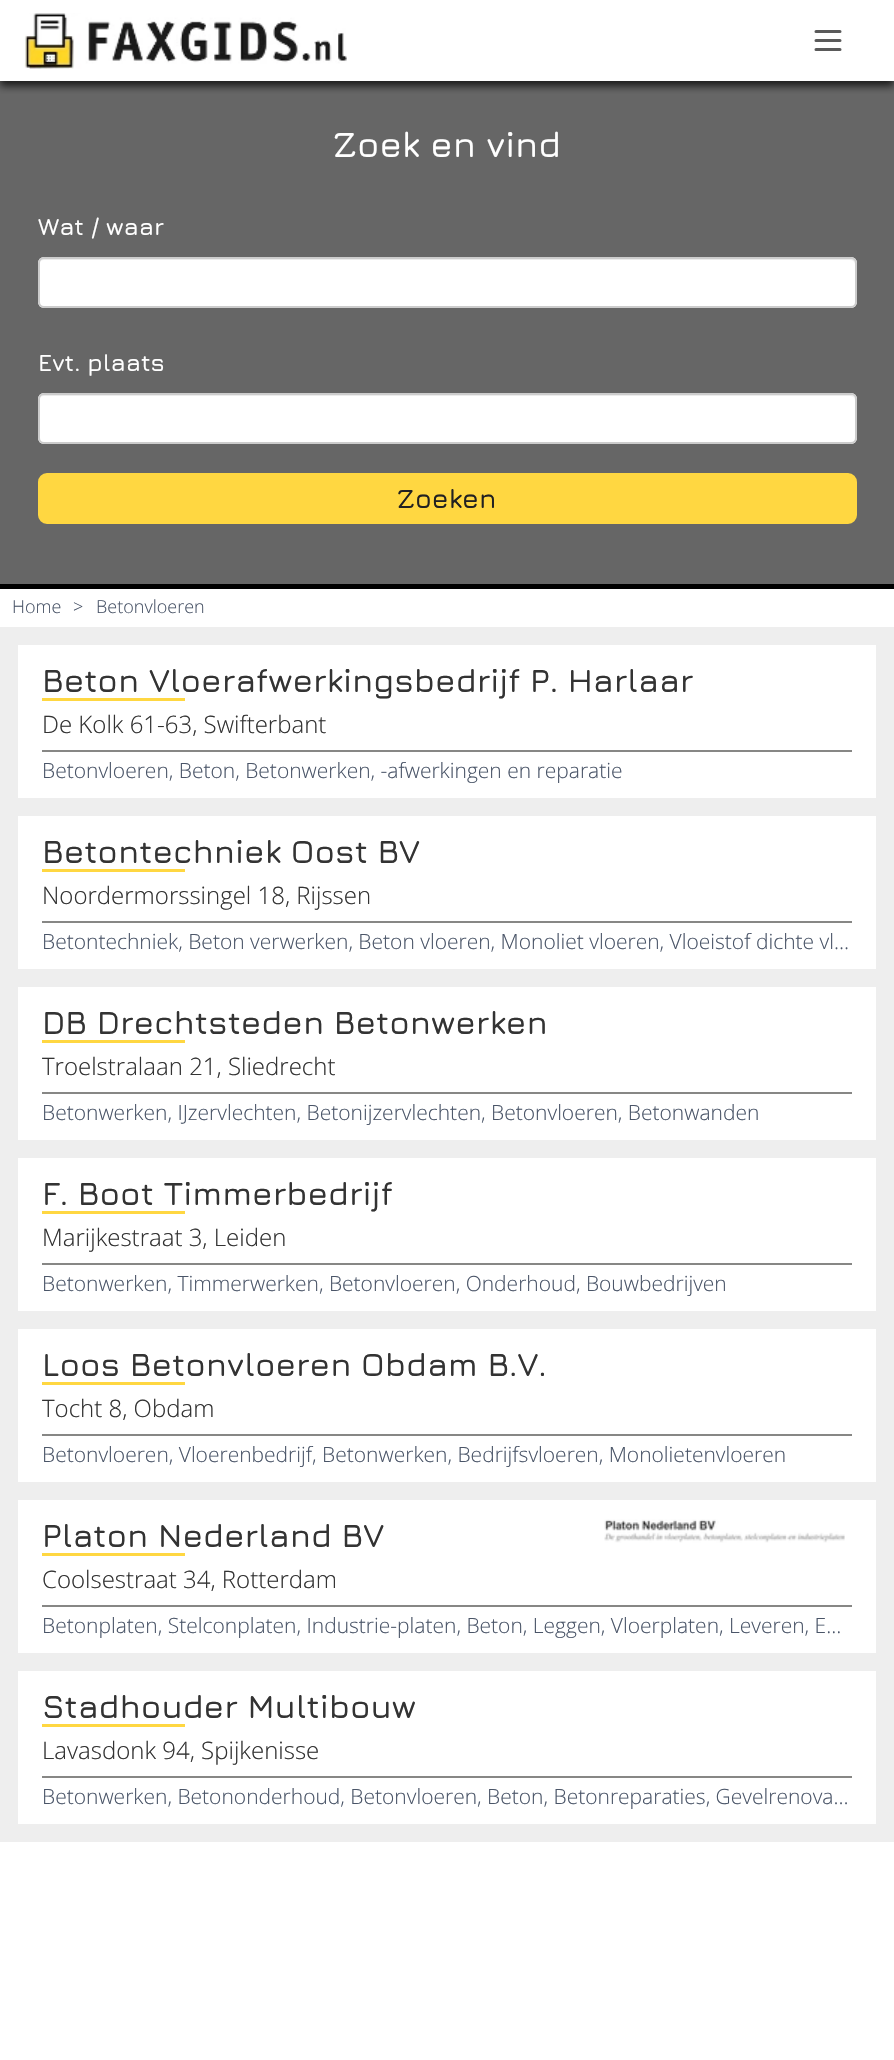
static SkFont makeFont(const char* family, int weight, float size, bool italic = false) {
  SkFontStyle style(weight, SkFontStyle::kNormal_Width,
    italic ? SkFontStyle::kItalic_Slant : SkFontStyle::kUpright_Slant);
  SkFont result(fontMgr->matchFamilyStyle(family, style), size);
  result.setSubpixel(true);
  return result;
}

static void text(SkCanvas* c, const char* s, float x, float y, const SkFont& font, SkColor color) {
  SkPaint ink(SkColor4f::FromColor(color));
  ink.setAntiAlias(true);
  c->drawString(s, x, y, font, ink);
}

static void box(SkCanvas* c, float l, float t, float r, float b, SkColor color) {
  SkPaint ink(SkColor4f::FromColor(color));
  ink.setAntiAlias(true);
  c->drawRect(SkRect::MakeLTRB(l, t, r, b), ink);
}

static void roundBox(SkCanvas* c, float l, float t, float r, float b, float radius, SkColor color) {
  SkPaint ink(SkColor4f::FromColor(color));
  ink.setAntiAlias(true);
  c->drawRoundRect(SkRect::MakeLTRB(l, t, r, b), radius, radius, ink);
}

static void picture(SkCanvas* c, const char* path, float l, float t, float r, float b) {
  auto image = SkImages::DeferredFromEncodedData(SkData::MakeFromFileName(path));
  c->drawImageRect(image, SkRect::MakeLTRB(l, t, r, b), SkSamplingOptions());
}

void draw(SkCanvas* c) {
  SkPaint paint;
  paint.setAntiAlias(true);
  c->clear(0xffffffff);
  box(c, 0, 81, 894, 584, 0xff666666);
  c->save();
  c->clipRect(SkRect::MakeLTRB(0, 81, 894, 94));
  paint.setColor(0xbf000000);
  paint.setMaskFilter(SkMaskFilter::MakeBlur(kNormal_SkBlurStyle, 4));
  c->drawRect(SkRect::MakeLTRB(0, 5, 894, 86), paint);
  paint.setMaskFilter(nullptr);
  c->restore();
  picture(c, "img_01.png", 24, 13, 347, 69);
  paint.setStyle(SkPaint::kStroke_Style);
  paint.setStrokeWidth(3);
  paint.setStrokeCap(SkPaint::kRound_Cap);
  paint.setStrokeJoin(SkPaint::kRound_Join);
  paint.setColor(0xff5a5a5a);
  c->drawPath(SkPathBuilder().moveTo(816, 31.5f).lineTo(840, 31.5f).moveTo(816, 40.5f).lineTo(840, 40.5f).moveTo(816, 49.5f).lineTo(840, 49.5f).detach(), paint);
  box(c, 0, 584, 894, 589, 0xff000000);
  SkFont face1 = makeFont("Jura", 600, 36);
  text(c, "Zoek en vind", 333, 157, face1, 0xffffffff);
  SkFont face2 = makeFont("Jura", 600, 24);
  text(c, "Wat / waar", 38, 235, face2, 0xffffffff);
  roundBox(c, 38, 257, 857, 308, 6, 0xffffffff);
  paint.setStyle(SkPaint::kFill_Style);
  paint.setColor(0xffececec);
  c->drawPath(SkPathBuilder().moveTo(44, 260).lineTo(850, 260).cubicTo(853, 260, 855, 262, 855, 264).lineTo(855, 263).cubicTo(855, 260, 853, 258, 850, 258).lineTo(44, 258).cubicTo(41, 258, 39, 260, 39, 263).lineTo(39, 264).cubicTo(39, 262, 41, 260, 44, 260).close().detach(), paint);
  paint.setStyle(SkPaint::kStroke_Style);
  paint.setStrokeWidth(2);
  paint.setStrokeCap(SkPaint::kButt_Cap);
  paint.setStrokeJoin(SkPaint::kMiter_Join);
  paint.setColor(0xffcccccc);
  c->drawRoundRect(SkRect::MakeLTRB(39, 258, 856, 307), 5, 5, paint);
  text(c, "Evt. plaats", 38, 371, face2, 0xffffffff);
  roundBox(c, 38, 393, 857, 444, 6, 0xffffffff);
  paint.setStyle(SkPaint::kFill_Style);
  paint.setColor(0xffececec);
  c->drawPath(SkPathBuilder().moveTo(44, 396).lineTo(850, 396).cubicTo(853, 396, 855, 398, 855, 400).cubicTo(855, 397, 853, 395, 850, 395).lineTo(44, 395).cubicTo(41, 395, 39, 397, 39, 400).cubicTo(39, 398, 41, 396, 44, 396).close().detach(), paint);
  paint.setStyle(SkPaint::kStroke_Style);
  paint.setColor(0xffcccccc);
  c->drawRoundRect(SkRect::MakeLTRB(39, 394, 856, 443), 5, 5, paint);
  paint.setStyle(SkPaint::kFill_Style);
  paint.setColor(0xffffd741);
  c->drawRoundRect(SkRect::MakeLTRB(39, 474, 856, 523), 8, 8, paint);
  paint.setStyle(SkPaint::kStroke_Style);
  c->drawRoundRect(SkRect::MakeLTRB(39, 474, 856, 523), 8, 8, paint);
  SkFont face3 = makeFont("Jura", 600, 27);
  text(c, "Zoeken", 397, 508, face3, 0xff212121);
  SkFont face4 = makeFont("Open Sans", 300, 18);
  text(c, "Home", 12, 613, face4, 0xff4a5568);
  text(c, ">", 73, 613, face4, 0xff4a5568);
  text(c, "Betonvloeren", 96, 613, face4, 0xff4a5568);
  box(c, 0, 627, 894, 1842, 0xffeeeeee);
  box(c, 18, 645, 876, 798, 0xffffffff);
  SkFont face5 = makeFont("Jura", 600, 33);
  text(c, "Beton Vloerafwerkingsbedrijf P. Harlaar", 42, 692, face5, 0xff333333);
  box(c, 42, 698, 185, 701, 0xffffd741);
  SkFont face6 = makeFont("Open Sans", 300, 24);
  text(c, "De Kolk 61-63, Swifterbant", 42, 733, face6, 0xff333333);
  box(c, 42, 750, 852, 752, 0xff878785);
  SkFont face7 = makeFont("Open Sans", 300, 21);
  text(c, "Betonvloeren, Beton, Betonwerken, -afwerkingen en reparatie", 42, 778, face7, 0xff4a5568);
  box(c, 18, 816, 876, 969, 0xffffffff);
  text(c, "Betontechniek Oost BV", 42, 863, face5, 0xff333333);
  box(c, 42, 869, 185, 872, 0xffffd741);
  text(c, "Noordermorssingel 18, Rijssen", 42, 904, face6, 0xff333333);
  box(c, 42, 921, 852, 923, 0xff878785);
  text(c, "Betontechniek, Beton verwerken, Beton vloeren, Monoliet vloeren, Vloeistof dichte vl…", 42, 949, face7, 0xff4a5568);
  box(c, 18, 987, 876, 1140, 0xffffffff);
  text(c, "DB Drechtsteden Betonwerken", 42, 1034, face5, 0xff333333);
  box(c, 42, 1040, 185, 1043, 0xffffd741);
  text(c, "Troelstralaan 21, Sliedrecht", 42, 1075, face6, 0xff333333);
  box(c, 42, 1092, 852, 1094, 0xff878785);
  text(c, "Betonwerken, IJzervlechten, Betonijzervlechten, Betonvloeren, Betonwanden", 42, 1120, face7, 0xff4a5568);
  box(c, 18, 1158, 876, 1311, 0xffffffff);
  text(c, "F. Boot Timmerbedrijf", 42, 1205, face5, 0xff333333);
  box(c, 42, 1211, 185, 1214, 0xffffd741);
  text(c, "Marijkestraat 3, Leiden", 42, 1246, face6, 0xff333333);
  box(c, 42, 1263, 852, 1265, 0xff878785);
  text(c, "Betonwerken, Timmerwerken, Betonvloeren, Onderhoud, Bouwbedrijven", 42, 1291, face7, 0xff4a5568);
  box(c, 18, 1329, 876, 1482, 0xffffffff);
  text(c, "Loos Betonvloeren Obdam B.V.", 42, 1376, face5, 0xff333333);
  box(c, 42, 1382, 185, 1385, 0xffffd741);
  text(c, "Tocht 8, Obdam", 42, 1417, face6, 0xff333333);
  box(c, 42, 1434, 852, 1436, 0xff878785);
  text(c, "Betonvloeren, Vloerenbedrijf, Betonwerken, Bedrijfsvloeren, Monolietenvloeren", 42, 1462, face7, 0xff4a5568);
  box(c, 18, 1500, 876, 1653, 0xffffffff);
  text(c, "Platon Nederland BV", 42, 1547, face5, 0xff333333);
  box(c, 42, 1553, 185, 1556, 0xffffd741);
  picture(c, "img_02.png", 604, 1519, 845, 1543);
  text(c, "Coolsestraat 34, Rotterdam", 42, 1588, face6, 0xff333333);
  box(c, 42, 1605, 852, 1607, 0xff878785);
  text(c, "Betonplaten, Stelconplaten, Industrie-platen, Beton, Leggen, Vloerplaten, Leveren, E…", 42, 1633, face7, 0xff4a5568);
  box(c, 18, 1671, 876, 1824, 0xffffffff);
  text(c, "Stadhouder Multibouw", 42, 1718, face5, 0xff333333);
  box(c, 42, 1724, 185, 1727, 0xffffd741);
  text(c, "Lavasdonk 94, Spijkenisse", 42, 1759, face6, 0xff333333);
  box(c, 42, 1776, 852, 1778, 0xff878785);
  text(c, "Betonwerken, Betononderhoud, Betonvloeren, Beton, Betonreparaties, Gevelrenova…", 42, 1804, face7, 0xff4a5568);
}
